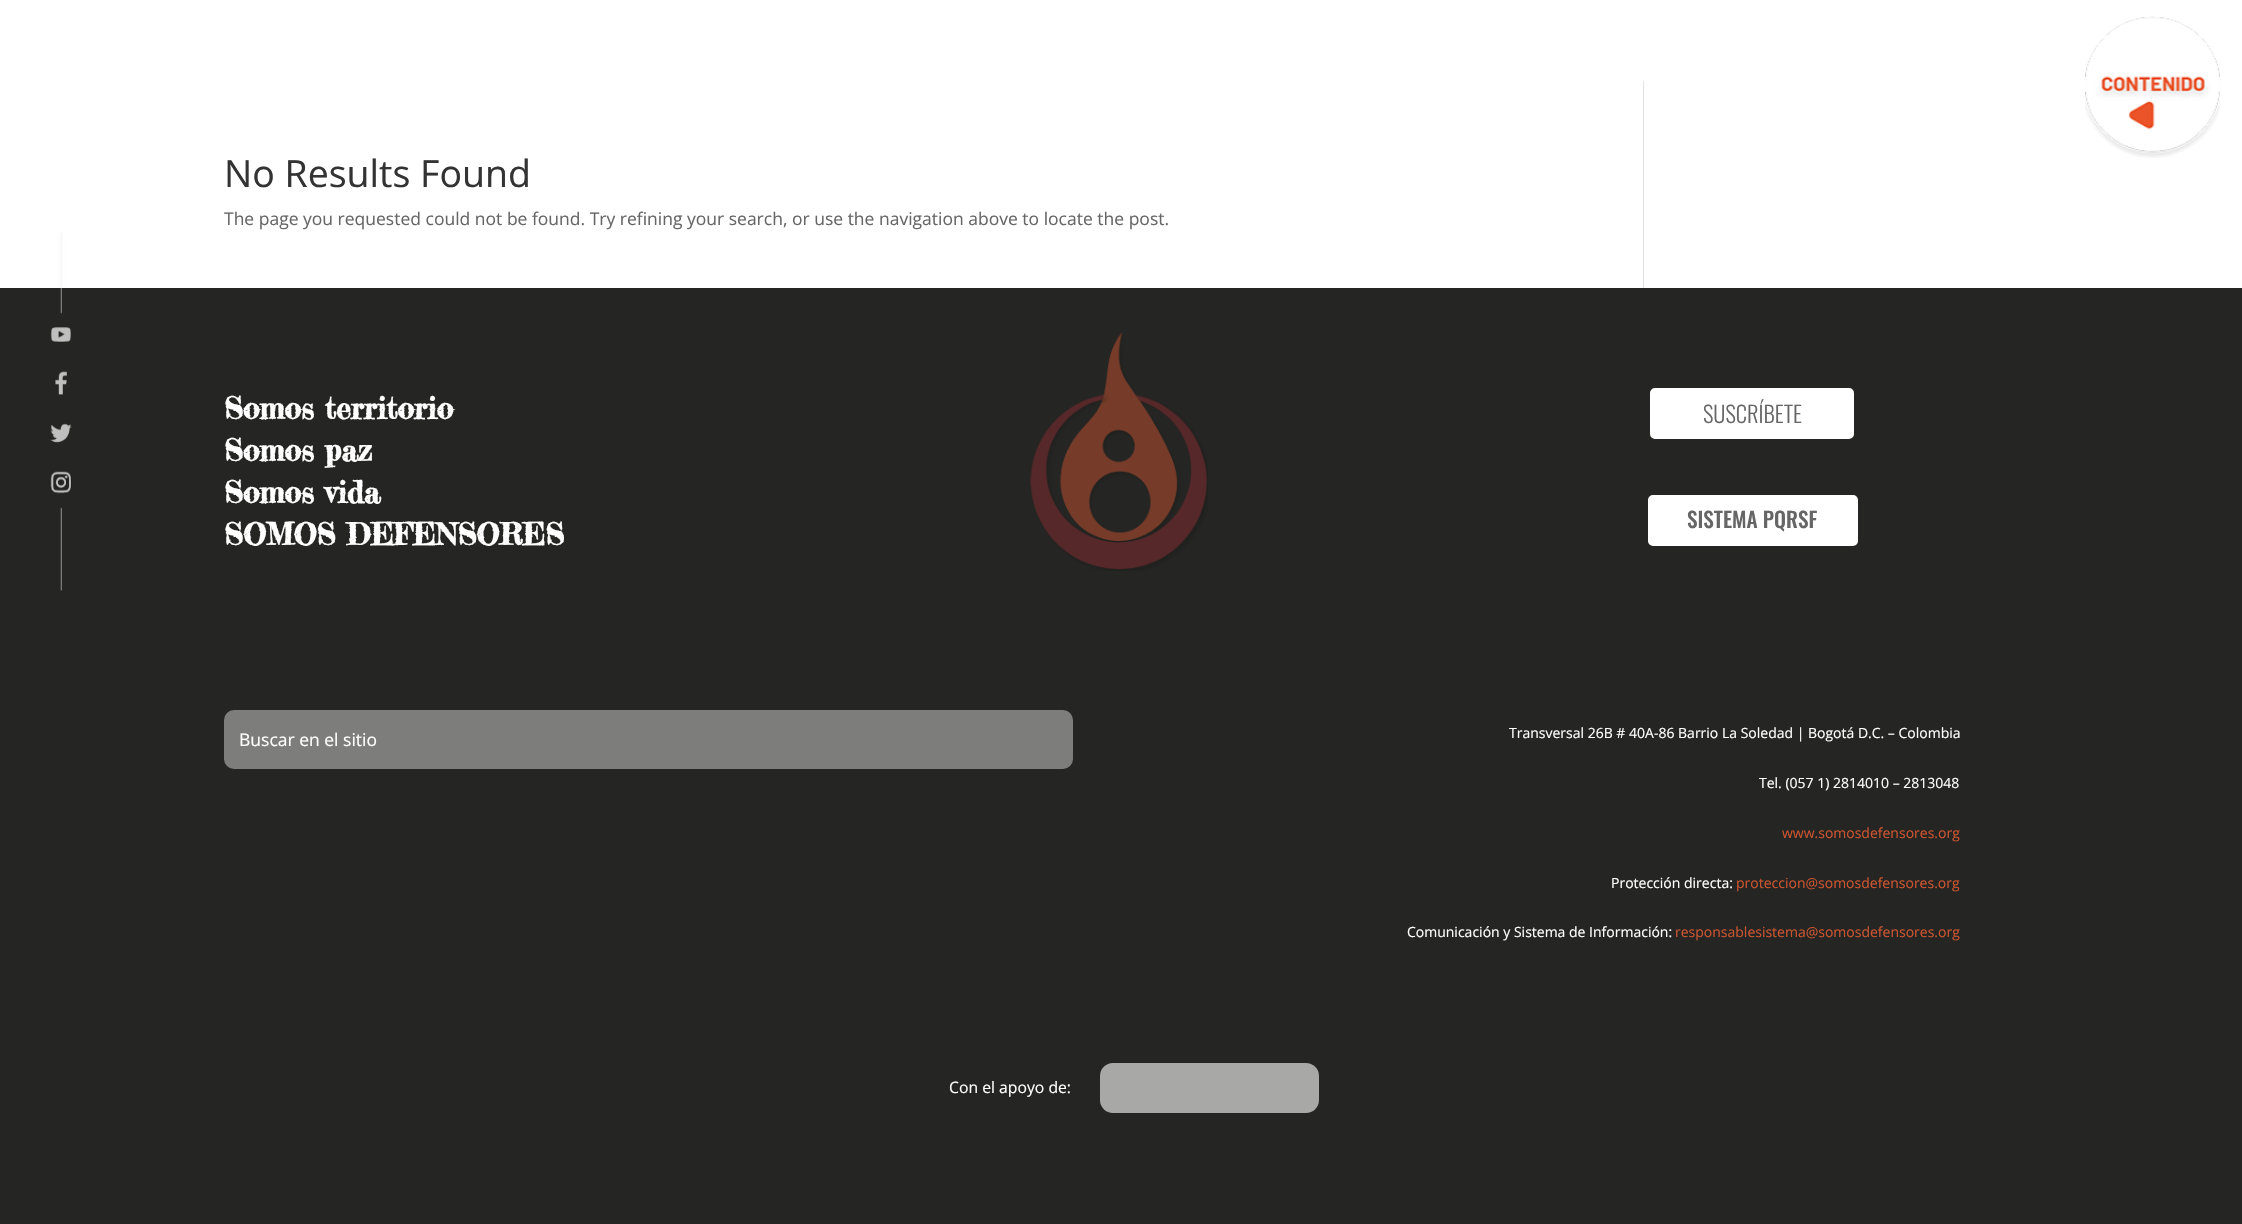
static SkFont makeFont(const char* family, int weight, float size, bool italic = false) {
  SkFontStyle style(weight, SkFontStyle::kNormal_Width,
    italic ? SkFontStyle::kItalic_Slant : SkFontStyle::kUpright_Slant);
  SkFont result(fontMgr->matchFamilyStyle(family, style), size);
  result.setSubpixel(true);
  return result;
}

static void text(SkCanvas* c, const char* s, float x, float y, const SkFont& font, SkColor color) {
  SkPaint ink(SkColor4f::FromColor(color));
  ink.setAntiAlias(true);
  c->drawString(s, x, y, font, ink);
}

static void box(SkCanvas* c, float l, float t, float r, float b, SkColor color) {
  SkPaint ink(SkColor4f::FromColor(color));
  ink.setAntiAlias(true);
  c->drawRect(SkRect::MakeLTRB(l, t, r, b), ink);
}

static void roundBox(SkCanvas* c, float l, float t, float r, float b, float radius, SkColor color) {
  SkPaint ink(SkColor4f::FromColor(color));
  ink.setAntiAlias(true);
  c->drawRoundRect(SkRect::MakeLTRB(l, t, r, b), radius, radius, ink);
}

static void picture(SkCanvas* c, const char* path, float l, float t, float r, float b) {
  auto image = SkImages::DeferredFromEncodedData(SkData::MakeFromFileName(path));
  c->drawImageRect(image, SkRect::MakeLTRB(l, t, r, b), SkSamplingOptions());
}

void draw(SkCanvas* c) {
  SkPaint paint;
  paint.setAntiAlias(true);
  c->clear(0xffffffff);
  picture(c, "img_01.png", 2085, 16, 2220, 158);
  box(c, 0, 288, 2242, 1224, 0xff252523);
  picture(c, "img_02.png", 50, 231, 72, 591);
  SkFont face1 = makeFont("Open Sans", 400, 37.5f);
  text(c, "No Results Found", 224, 187, face1, 0xff333333);
  SkFont face2 = makeFont("Open Sans", 400, 17.5f);
  text(c, "The page you requested could not be found. Try refining your search, or use the navigation above to locate the post.", 224, 225, face2, 0xff666666);
  box(c, 1643, 81, 1644, 288, 0xffe2e2e2);
  SkFont face3 = makeFont("Fredericka the Great", 700, 30);
  text(c, "Somos territorio", 224, 419, face3, 0xffffffff);
  text(c, "Somos paz", 224, 461, face3, 0xffffffff);
  text(c, "Somos vida", 224, 503, face3, 0xffffffff);
  text(c, "SOMOS DEFENSORES", 224, 545, face3, 0xffffffff);
  picture(c, "img_03.png", 1030, 332, 1208, 571);
  paint.setColor(0xffffffff);
  c->drawRoundRect(SkRect::MakeLTRB(1651.5f, 389.5f, 1852.5f, 437.5f), 3.5f, 3.5f, paint);
  paint.setStyle(SkPaint::kStroke_Style);
  paint.setStrokeWidth(3);
  c->drawRoundRect(SkRect::MakeLTRB(1651.5f, 389.5f, 1852.5f, 437.5f), 3.5f, 3.5f, paint);
  SkFont face4 = makeFont("Oswald", 300, 22.5f);
  text(c, "SUSCRÍBETE", 1703, 423, face4, 0xff666666);
  paint.setStyle(SkPaint::kFill_Style);
  c->drawRoundRect(SkRect::MakeLTRB(1649.5f, 496.5f, 1856.5f, 544.5f), 3.5f, 3.5f, paint);
  paint.setStyle(SkPaint::kStroke_Style);
  c->drawRoundRect(SkRect::MakeLTRB(1649.5f, 496.5f, 1856.5f, 544.5f), 3.5f, 3.5f, paint);
  SkFont face5 = makeFont("Oswald", 500, 21.25f);
  text(c, "SISTEMA PQRSF", 1687, 528, face5, 0xff666666);
  roundBox(c, 224, 710, 1073, 769, 10, 0xff7d7d7c);
  text(c, "Buscar en el sitio", 239, 746, face2, 0xffffffff);
  SkFont face6 = makeFont("Open Sans", 400, 14);
  text(c, "Transversal 26B # 40A-86 Barrio La Soledad | Bogotá D.C. – Colombia", 1509, 738, face6, 0xffffffff);
  text(c, "Tel. (057 1) 2814010 – 2813048", 1759, 788, face6, 0xffffffff);
  text(c, "www.somosdefensores.org", 1782, 838, face6, 0xffcd5530);
  text(c, "Protección directa:", 1611, 888, face6, 0xffffffff);
  text(c, "proteccion@somosdefensores.org", 1736, 888, face6, 0xffcd5530);
  text(c, "Comunicación y Sistema de Información:", 1407, 937, face6, 0xffffffff);
  text(c, "responsablesistema@somosdefensores.org", 1675, 937, face6, 0xffcd5530);
  SkFont face7 = makeFont("Open Sans", 400, 15.75f);
  text(c, "Con el apoyo de:", 949, 1093, face7, 0xffffffff);
  roundBox(c, 1100, 1063, 1319, 1113, 13, 0xffa8a8a7);
}
